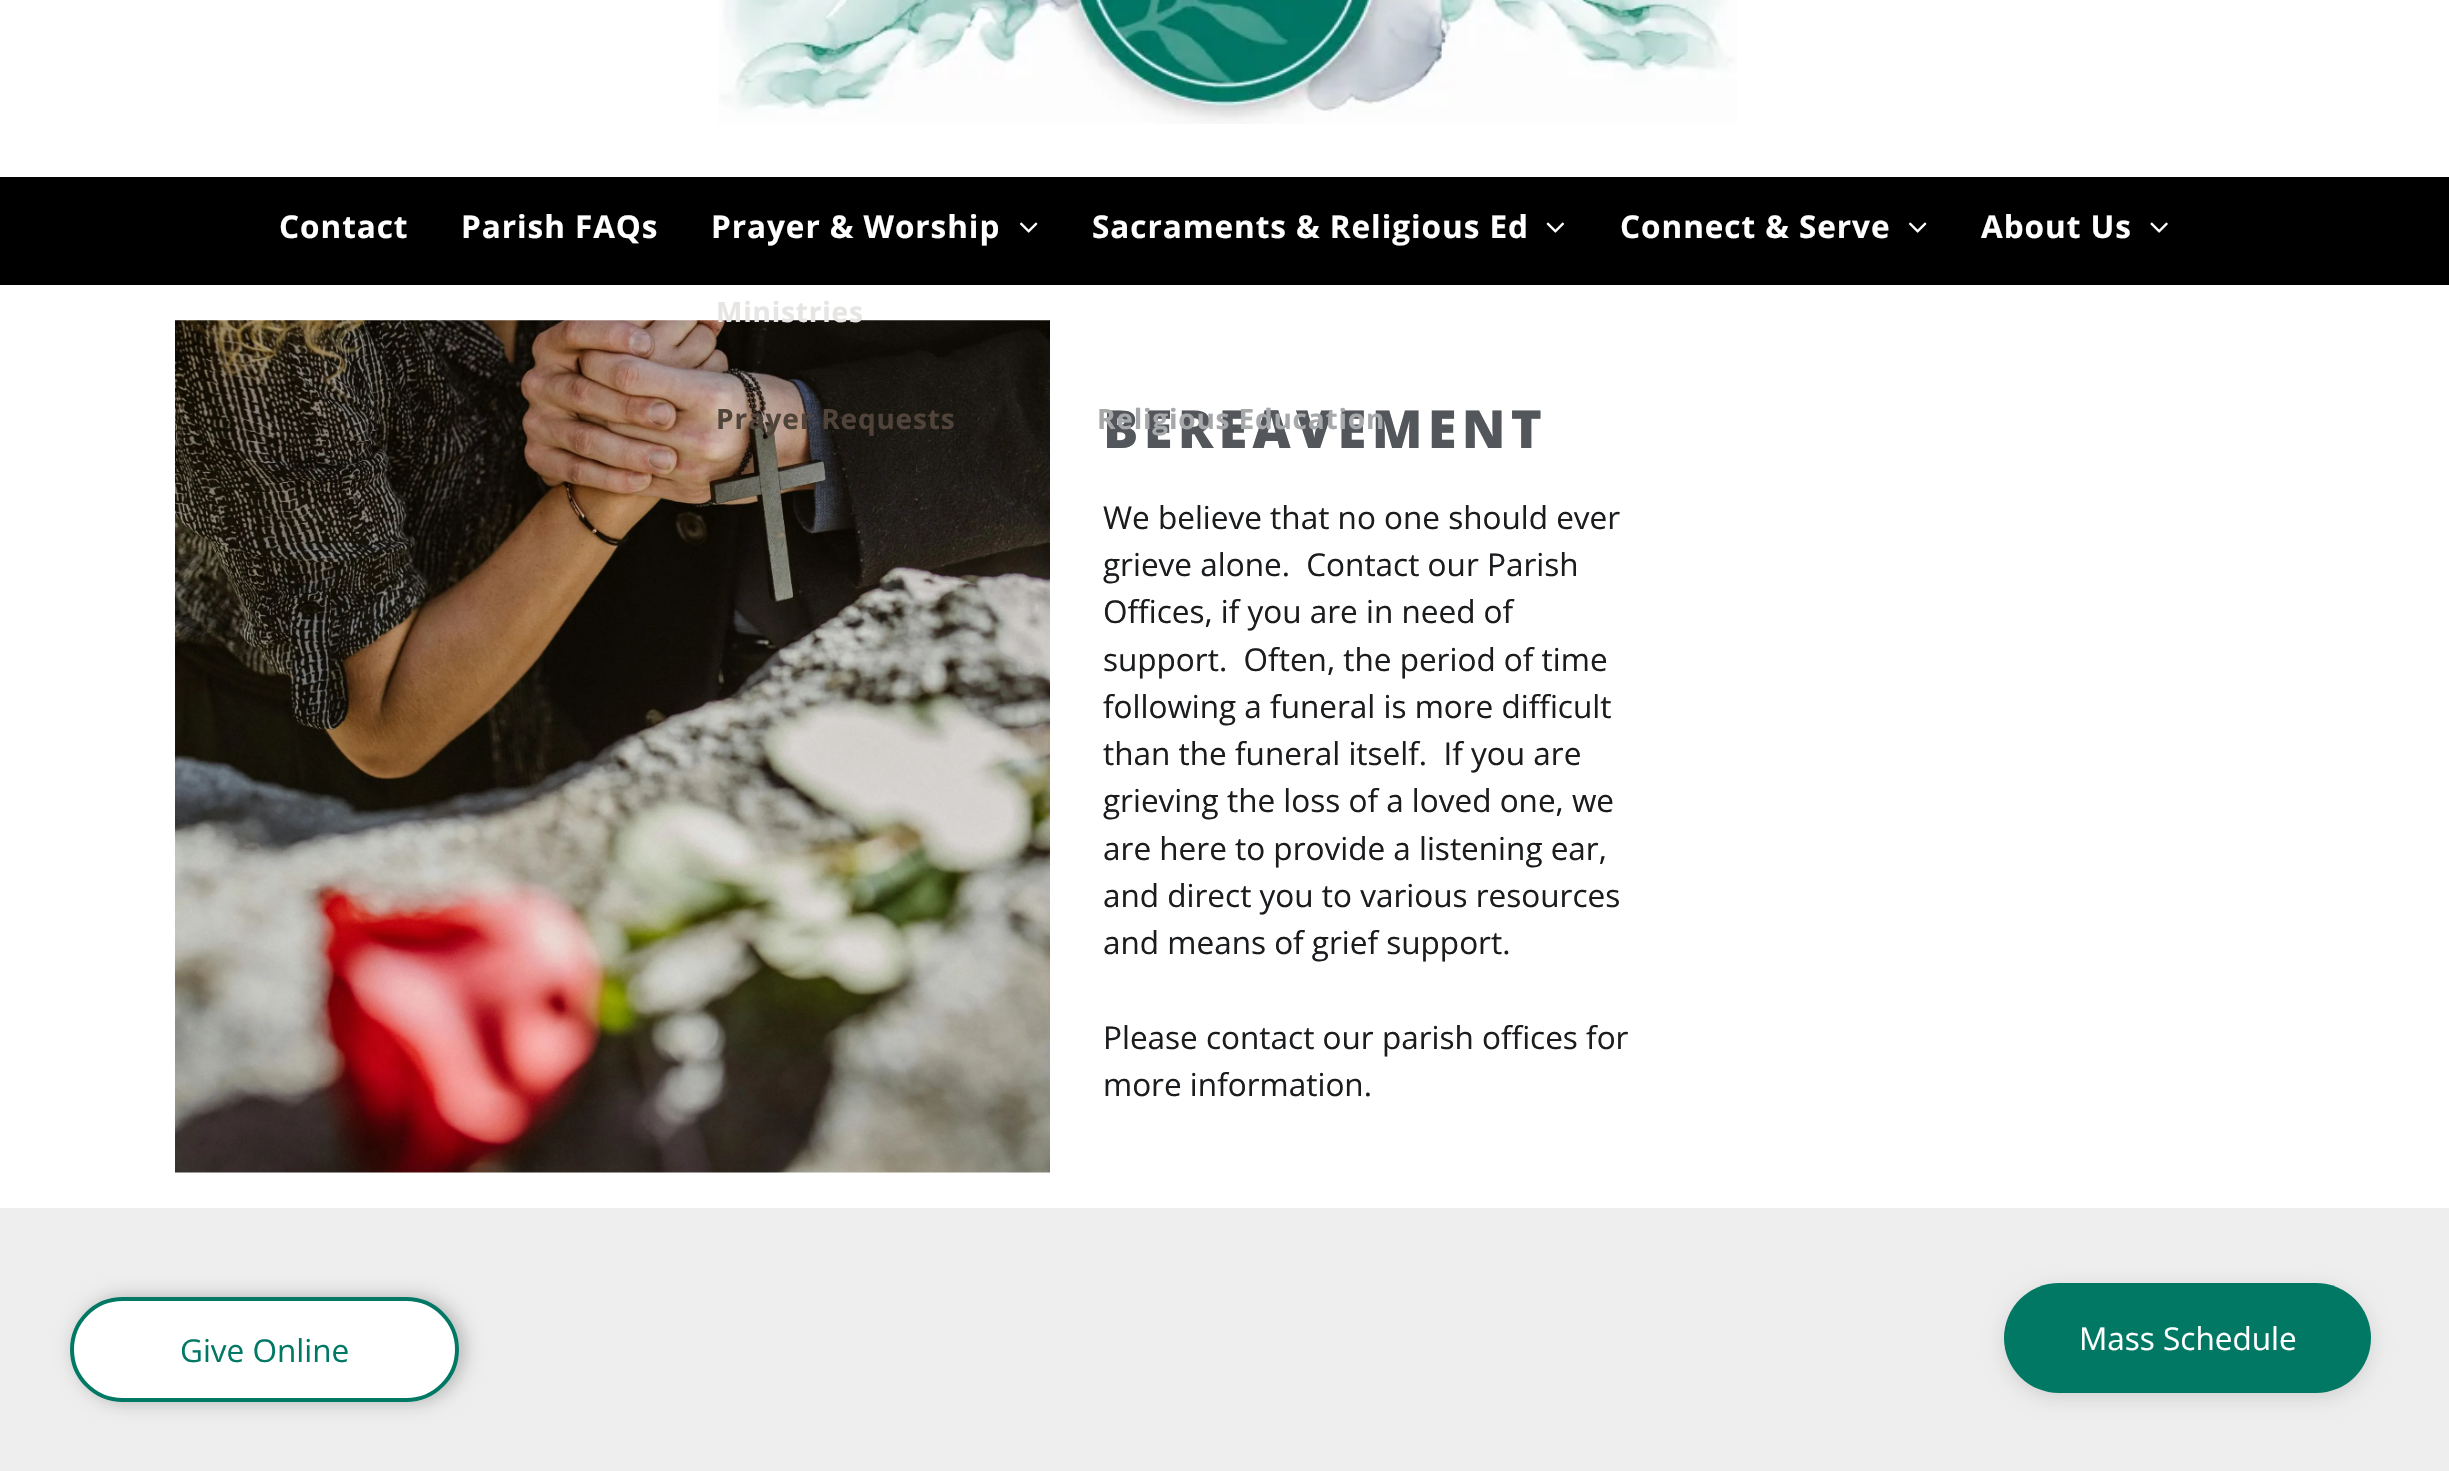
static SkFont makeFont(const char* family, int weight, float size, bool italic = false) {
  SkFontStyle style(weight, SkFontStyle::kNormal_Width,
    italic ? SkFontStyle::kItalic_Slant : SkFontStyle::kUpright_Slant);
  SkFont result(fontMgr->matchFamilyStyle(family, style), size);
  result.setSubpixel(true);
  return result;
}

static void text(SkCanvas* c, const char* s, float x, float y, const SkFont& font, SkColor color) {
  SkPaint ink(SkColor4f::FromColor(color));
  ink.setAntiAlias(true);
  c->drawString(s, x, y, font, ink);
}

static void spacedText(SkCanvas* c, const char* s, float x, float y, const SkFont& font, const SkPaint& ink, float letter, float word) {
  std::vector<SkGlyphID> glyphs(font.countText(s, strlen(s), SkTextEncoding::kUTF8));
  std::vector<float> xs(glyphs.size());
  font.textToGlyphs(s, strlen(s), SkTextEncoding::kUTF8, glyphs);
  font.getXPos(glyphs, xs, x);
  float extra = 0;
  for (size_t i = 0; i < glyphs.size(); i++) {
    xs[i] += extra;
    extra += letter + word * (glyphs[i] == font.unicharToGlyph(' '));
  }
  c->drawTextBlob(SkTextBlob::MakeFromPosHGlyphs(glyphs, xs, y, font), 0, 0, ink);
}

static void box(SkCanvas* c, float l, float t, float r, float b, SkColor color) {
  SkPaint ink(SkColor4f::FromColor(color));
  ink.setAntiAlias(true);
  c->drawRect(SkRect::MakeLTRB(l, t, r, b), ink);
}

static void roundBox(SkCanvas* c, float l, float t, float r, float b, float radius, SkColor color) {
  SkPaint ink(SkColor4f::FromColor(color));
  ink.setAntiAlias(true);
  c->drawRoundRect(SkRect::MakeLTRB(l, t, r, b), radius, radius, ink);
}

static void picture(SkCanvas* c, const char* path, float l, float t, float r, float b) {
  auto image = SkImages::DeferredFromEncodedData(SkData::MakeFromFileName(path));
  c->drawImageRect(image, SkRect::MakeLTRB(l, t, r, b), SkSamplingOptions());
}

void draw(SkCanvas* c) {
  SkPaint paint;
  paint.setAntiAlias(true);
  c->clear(0xffffffff);
  picture(c, "img_01.png", 718, 0, 1737, 124);
  box(c, 0, 177, 2449, 285, 0xff000000);
  SkFont face1 = makeFont("Open Sans", 700, 31.5f);
  paint.setColor(0xffffffff);
  spacedText(c, "Contact", 279, 238, face1, paint, 0.95f, 0);
  spacedText(c, "Parish FAQs", 461, 238, face1, paint, 0.95f, 0);
  spacedText(c, "Prayer & Worship", 711, 238, face1, paint, 0.95f, 0);
  picture(c, "img_02.png", 1019, 222, 1038, 233);
  picture(c, "img_06.png", 175, 320, 1050, 1173);
  SkFont face2 = makeFont("Open Sans", 700, 28);
  paint.setColor(0xffe6e5e4);
  spacedText(c, "Ministries", 716, 322, face2, paint, 0.8f, 0);
  paint.setColor(0xff4f433a);
  spacedText(c, "Prayer Requests", 716, 429, face2, paint, 0.8f, 0);
  paint.setColor(0xffffffff);
  spacedText(c, "Sacraments & Religious Ed", 1092, 238, face1, paint, 0.95f, 0);
  picture(c, "img_03.png", 1546, 222, 1565, 233);
  SkFont face3 = makeFont("Open Sans", 800, 52.5f);
  paint.setColor(0xff53565a);
  spacedText(c, "BEREAVEMENT", 1103, 448, face3, paint, 5.25f, 0);
  paint.setColor(0xffa6a8aa);
  spacedText(c, "Religious Education", 1097, 429, face2, paint, 0.8f, 0);
  paint.setColor(0xffffffff);
  spacedText(c, "Connect & Serve", 1620, 238, face1, paint, 0.95f, 0);
  picture(c, "img_04.png", 1908, 222, 1927, 233);
  spacedText(c, "About Us", 1981, 238, face1, paint, 0.95f, 0);
  picture(c, "img_05.png", 2150, 222, 2168, 233);
  SkFont face4 = makeFont("Open Sans", 400, 31.5f);
  text(c, "We believe that no one should ever", 1103, 529, face4, 0xff1b1c1e);
  text(c, "grieve alone.  Contact our Parish", 1103, 576, face4, 0xff1b1c1e);
  text(c, "Offices, if you are in need of", 1103, 623, face4, 0xff1b1c1e);
  text(c, "support.  Often, the period of time", 1103, 671, face4, 0xff1b1c1e);
  text(c, "following a funeral is more difficult", 1103, 718, face4, 0xff1b1c1e);
  text(c, "than the funeral itself.  If you are", 1103, 765, face4, 0xff1b1c1e);
  text(c, "grieving the loss of a loved one, we", 1103, 812, face4, 0xff1b1c1e);
  text(c, "are here to provide a listening ear,", 1103, 860, face4, 0xff1b1c1e);
  text(c, "and direct you to various resources", 1103, 907, face4, 0xff1b1c1e);
  text(c, "and means of grief support.", 1103, 954, face4, 0xff1b1c1e);
  text(c, "Please contact our parish offices for", 1103, 1049, face4, 0xff1b1c1e);
  text(c, "more information.", 1103, 1096, face4, 0xff1b1c1e);
  box(c, 0, 1208, 2449, 1471, 0xffefeeee);
  c->save();
  c->clipPath(SkPathBuilder(SkPathFillType::kEvenOdd).moveTo(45, 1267).lineTo(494, 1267).lineTo(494, 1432).lineTo(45, 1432).close().moveTo(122.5f, 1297).lineTo(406.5f, 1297).cubicTo(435.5f, 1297, 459, 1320.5f, 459, 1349.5f).cubicTo(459, 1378.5f, 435.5f, 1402, 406.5f, 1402).lineTo(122.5f, 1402).cubicTo(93.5f, 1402, 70, 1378.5f, 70, 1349.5f).cubicTo(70, 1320.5f, 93.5f, 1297, 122.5f, 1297).close().detach(), true);
  paint.setColor(0x40000000);
  paint.setMaskFilter(SkMaskFilter::MakeBlur(kNormal_SkBlurStyle, 9.5f));
  c->drawRoundRect(SkRect::MakeLTRB(75, 1297, 464, 1402), 52.5f, 52.5f, paint);
  paint.setMaskFilter(nullptr);
  c->restore();
  paint.setColor(0xf2ffffff);
  c->drawRoundRect(SkRect::MakeLTRB(72, 1299, 457, 1400), 50.5f, 50.5f, paint);
  paint.setStyle(SkPaint::kStroke_Style);
  paint.setStrokeWidth(4);
  paint.setColor(0xff007864);
  c->drawRoundRect(SkRect::MakeLTRB(72, 1299, 457, 1400), 50.5f, 50.5f, paint);
  text(c, "Give Online", 180, 1362, face4, 0xff007864);
  paint.setStyle(SkPaint::kFill_Style);
  paint.setColor(0x1f000000);
  paint.setMaskFilter(SkMaskFilter::MakeBlur(kNormal_SkBlurStyle, 9.5f));
  c->drawRoundRect(SkRect::MakeLTRB(2004, 1288, 2371, 1398), 55, 55, paint);
  paint.setMaskFilter(nullptr);
  roundBox(c, 2004, 1283, 2371, 1393, 55, 0xff007864);
  text(c, "Mass Schedule", 2079, 1350, face4, 0xffffffff);
}
